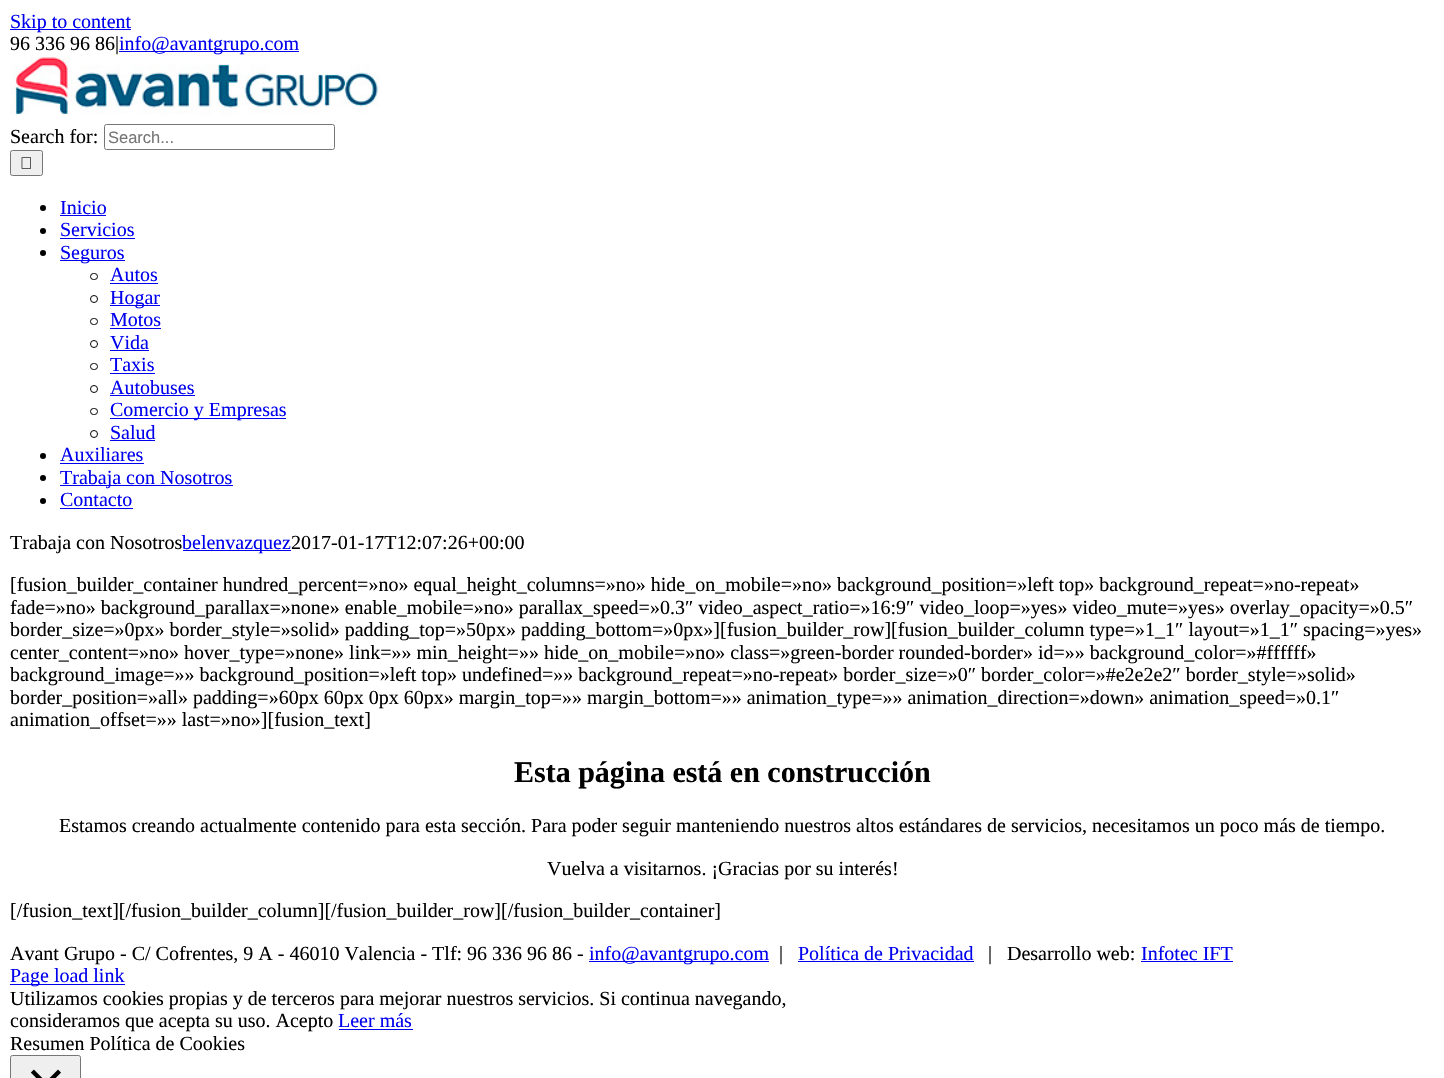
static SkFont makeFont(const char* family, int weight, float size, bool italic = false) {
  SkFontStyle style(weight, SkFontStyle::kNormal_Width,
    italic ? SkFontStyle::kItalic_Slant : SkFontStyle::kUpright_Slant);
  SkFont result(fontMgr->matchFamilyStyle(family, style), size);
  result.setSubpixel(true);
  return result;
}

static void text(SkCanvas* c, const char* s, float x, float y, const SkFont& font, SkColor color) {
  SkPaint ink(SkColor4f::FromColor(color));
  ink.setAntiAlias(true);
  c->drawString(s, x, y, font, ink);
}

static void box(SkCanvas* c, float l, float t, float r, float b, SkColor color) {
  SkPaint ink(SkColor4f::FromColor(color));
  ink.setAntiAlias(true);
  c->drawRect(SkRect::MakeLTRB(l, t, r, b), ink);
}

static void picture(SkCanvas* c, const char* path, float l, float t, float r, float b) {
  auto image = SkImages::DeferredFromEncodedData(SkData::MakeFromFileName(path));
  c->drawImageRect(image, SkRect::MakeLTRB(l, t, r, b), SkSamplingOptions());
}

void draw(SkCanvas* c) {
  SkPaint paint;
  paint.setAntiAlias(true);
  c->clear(0xffffffff);
  box(c, 10, 29, 131, 30, 0xff0000ee);
  SkFont face1 = makeFont("Liberation Serif", 400, 20);
  text(c, "Skip to content", 10, 28, face1, 0xff0000ee);
  text(c, "96 336 96 86|", 10, 50, face1, 0xff000000);
  box(c, 119, 51, 299, 52, 0xff0000ee);
  text(c, "info@avantgrupo.com", 119, 50, face1, 0xff0000ee);
  picture(c, "img_01.png", 10, 55, 380, 115);
  text(c, "Search for:", 10, 143, face1, 0xff000000);
  paint.setStyle(SkPaint::kStroke_Style);
  paint.setStrokeWidth(1);
  paint.setColor(0xff767676);
  c->drawRoundRect(SkRect::MakeLTRB(104.5f, 124.5f, 334.5f, 149.5f), 2, 2, paint);
  SkFont face2 = makeFont("Liberation Sans", 400, 16.5f);
  text(c, "Search...", 108, 143, face2, 0xff757575);
  paint.setStyle(SkPaint::kFill_Style);
  paint.setColor(0xffefefef);
  c->drawRoundRect(SkRect::MakeLTRB(10.5f, 150.5f, 42.5f, 175.5f), 2, 2, paint);
  paint.setStyle(SkPaint::kStroke_Style);
  paint.setColor(0xff767676);
  c->drawRoundRect(SkRect::MakeLTRB(10.5f, 150.5f, 42.5f, 175.5f), 2, 2, paint);
  picture(c, "img_02.png", 21, 157, 31, 169);
  paint.setStyle(SkPaint::kFill_Style);
  paint.setColor(0xff000000);
  c->drawCircle(43, 208, 3, paint);
  text(c, "Inicio", 60, 214, face1, 0xff0000ee);
  box(c, 60, 215, 106, 216, 0xff0000ee);
  c->drawCircle(43, 231, 3, paint);
  text(c, "Servicios", 60, 236, face1, 0xff0000ee);
  box(c, 60, 238, 135, 239, 0xff0000ee);
  c->drawCircle(43, 253, 3, paint);
  box(c, 60, 260, 125, 261, 0xff0000ee);
  text(c, "Seguros", 60, 259, face1, 0xff0000ee);
  paint.setStyle(SkPaint::kStroke_Style);
  c->drawRoundRect(SkRect::MakeLTRB(90.5f, 273.5f, 97.5f, 279.5f), 3, 3, paint);
  text(c, "Autos", 110, 281, face1, 0xff0000ee);
  box(c, 110, 283, 158, 284, 0xff0000ee);
  c->drawCircle(94, 299, 3.5f, paint);
  box(c, 110, 305, 160, 306, 0xff0000ee);
  text(c, "Hogar", 110, 304, face1, 0xff0000ee);
  c->drawRoundRect(SkRect::MakeLTRB(90.5f, 318.5f, 97.5f, 324.5f), 3, 3, paint);
  text(c, "Motos", 110, 326, face1, 0xff0000ee);
  box(c, 110, 328, 161, 329, 0xff0000ee);
  c->drawCircle(94, 344, 3.5f, paint);
  text(c, "Vida", 110, 349, face1, 0xff0000ee);
  box(c, 110, 350, 149, 351, 0xff0000ee);
  c->drawRoundRect(SkRect::MakeLTRB(90.5f, 363.5f, 97.5f, 369.5f), 3, 3, paint);
  text(c, "Taxis", 110, 371, face1, 0xff0000ee);
  box(c, 110, 373, 155, 374, 0xff0000ee);
  c->drawCircle(94, 389, 3.5f, paint);
  text(c, "Autobuses", 110, 394, face1, 0xff0000ee);
  box(c, 110, 395, 195, 396, 0xff0000ee);
  c->drawRoundRect(SkRect::MakeLTRB(90.5f, 408.5f, 97.5f, 414.5f), 3, 3, paint);
  box(c, 110, 418, 286, 419, 0xff0000ee);
  text(c, "Comercio y Empresas", 110, 416, face1, 0xff0000ee);
  c->drawCircle(94, 434, 3.5f, paint);
  text(c, "Salud", 110, 439, face1, 0xff0000ee);
  box(c, 110, 440, 155, 441, 0xff0000ee);
  paint.setStyle(SkPaint::kFill_Style);
  c->drawCircle(43, 456, 3, paint);
  text(c, "Auxiliares", 60, 461, face1, 0xff0000ee);
  box(c, 60, 463, 144, 464, 0xff0000ee);
  c->drawCircle(43, 478, 3, paint);
  box(c, 60, 485, 233, 486, 0xff0000ee);
  text(c, "Trabaja con Nosotros", 60, 484, face1, 0xff0000ee);
  c->drawCircle(43, 501, 3, paint);
  text(c, "Contacto", 60, 506, face1, 0xff0000ee);
  box(c, 60, 508, 133, 509, 0xff0000ee);
  text(c, "Trabaja con Nosotros", 10, 549, face1, 0xff000000);
  box(c, 183, 550, 291, 551, 0xff0000ee);
  text(c, "belenvazquez", 182, 549, face1, 0xff0000ee);
  text(c, "2017-01-17T12:07:26+00:00", 291, 549, face1, 0xff000000);
  text(c, "[fusion_builder_container hundred_percent=»no» equal_height_columns=»no» hide_on_mobile=»no» background_position=»left top» background_repeat=»no-repeat»", 10, 591, face1, 0xff000000);
  text(c, "fade=»no» background_parallax=»none» enable_mobile=»no» parallax_speed=»0.3″ video_aspect_ratio=»16:9″ video_loop=»yes» video_mute=»yes» overlay_opacity=»0.5″", 10, 614, face1, 0xff000000);
  text(c, "border_size=»0px» border_style=»solid» padding_top=»50px» padding_bottom=»0px»][fusion_builder_row][fusion_builder_column type=»1_1″ layout=»1_1″ spacing=»yes»", 10, 636, face1, 0xff000000);
  text(c, "center_content=»no» hover_type=»none» link=»» min_height=»» hide_on_mobile=»no» class=»green-border rounded-border» id=»» background_color=»#ffffff»", 10, 659, face1, 0xff000000);
  text(c, "background_image=»» background_position=»left top» undefined=»» background_repeat=»no-repeat» border_size=»0″ border_color=»#e2e2e2″ border_style=»solid»", 10, 681, face1, 0xff000000);
  text(c, "border_position=»all» padding=»60px 60px 0px 60px» margin_top=»» margin_bottom=»» animation_type=»» animation_direction=»down» animation_speed=»0.1″", 10, 704, face1, 0xff000000);
  text(c, "animation_offset=»» last=»no»][fusion_text]", 10, 726, face1, 0xff000000);
  SkFont face3 = makeFont("Liberation Serif", 700, 30);
  text(c, "Esta página está en construcción", 514, 782, face3, 0xff000000);
  text(c, "Estamos creando actualmente contenido para esta sección. Para poder seguir manteniendo nuestros altos estándares de servicios, necesitamos un poco más de tiempo.", 59, 832, face1, 0xff000000);
  text(c, "Vuelva a visitarnos. ¡Gracias por su interés!", 547, 875, face1, 0xff000000);
  text(c, "[/fusion_text][/fusion_builder_column][/fusion_builder_row][/fusion_builder_container]", 10, 917, face1, 0xff000000);
  text(c, "Avant Grupo - C/ Cofrentes, 9 A - 46010 Valencia - Tlf: 96 336 96 86 -", 10, 960, face1, 0xff000000);
  box(c, 589, 961, 769, 962, 0xff0000ee);
  text(c, "info@avantgrupo.com", 589, 960, face1, 0xff0000ee);
  text(c, "|", 779, 960, face1, 0xff000000);
  text(c, "Política de Privacidad", 798, 960, face1, 0xff0000ee);
  box(c, 798, 961, 974, 962, 0xff0000ee);
  text(c, "|   Desarrollo web:", 988, 960, face1, 0xff000000);
  text(c, "Infotec IFT", 1141, 960, face1, 0xff0000ee);
  box(c, 1141, 961, 1233, 962, 0xff0000ee);
  box(c, 10, 984, 125, 985, 0xff0000ee);
  text(c, "Page load link", 10, 982, face1, 0xff0000ee);
  text(c, "Utilizamos cookies propias y de terceros para mejorar nuestros servicios. Si continua navegando,", 10, 1005, face1, 0xff000000);
  text(c, "consideramos que acepta su uso. Acepto", 10, 1027, face1, 0xff000000);
  text(c, "Leer más", 338, 1027, face1, 0xff0000ee);
  box(c, 339, 1029, 413, 1030, 0xff0000ee);
  text(c, "Resumen Política de Cookies", 10, 1050, face1, 0xff000000);
  paint.setColor(0xffefefef);
  c->drawRoundRect(SkRect::MakeLTRB(10.5f, 1055.5f, 80.5f, 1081.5f), 2, 2, paint);
  paint.setStyle(SkPaint::kStroke_Style);
  paint.setColor(0xff767676);
  c->drawRoundRect(SkRect::MakeLTRB(10.5f, 1055.5f, 80.5f, 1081.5f), 2, 2, paint);
  picture(c, "img_03.png", 30, 1069, 61, 1078);
}
